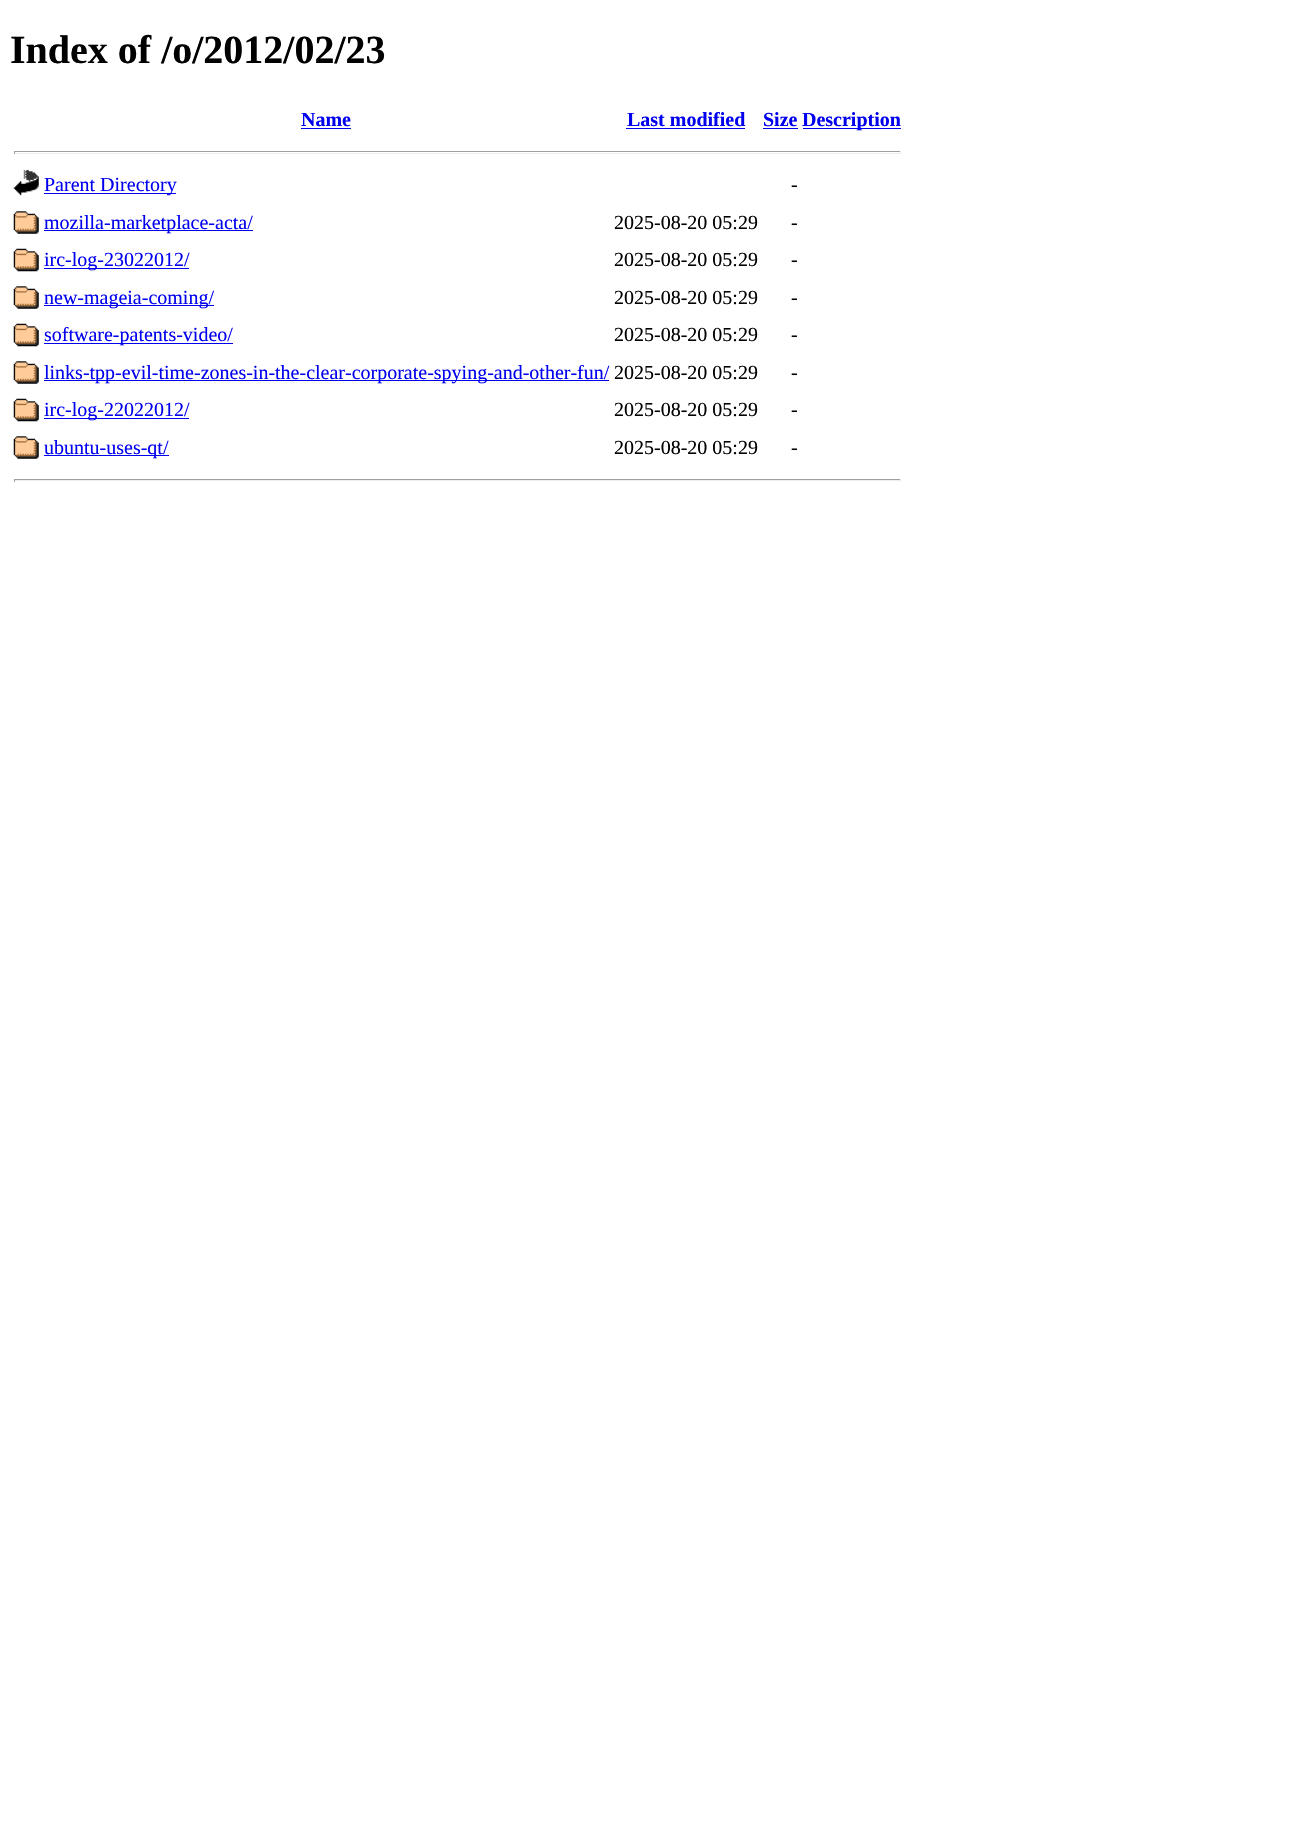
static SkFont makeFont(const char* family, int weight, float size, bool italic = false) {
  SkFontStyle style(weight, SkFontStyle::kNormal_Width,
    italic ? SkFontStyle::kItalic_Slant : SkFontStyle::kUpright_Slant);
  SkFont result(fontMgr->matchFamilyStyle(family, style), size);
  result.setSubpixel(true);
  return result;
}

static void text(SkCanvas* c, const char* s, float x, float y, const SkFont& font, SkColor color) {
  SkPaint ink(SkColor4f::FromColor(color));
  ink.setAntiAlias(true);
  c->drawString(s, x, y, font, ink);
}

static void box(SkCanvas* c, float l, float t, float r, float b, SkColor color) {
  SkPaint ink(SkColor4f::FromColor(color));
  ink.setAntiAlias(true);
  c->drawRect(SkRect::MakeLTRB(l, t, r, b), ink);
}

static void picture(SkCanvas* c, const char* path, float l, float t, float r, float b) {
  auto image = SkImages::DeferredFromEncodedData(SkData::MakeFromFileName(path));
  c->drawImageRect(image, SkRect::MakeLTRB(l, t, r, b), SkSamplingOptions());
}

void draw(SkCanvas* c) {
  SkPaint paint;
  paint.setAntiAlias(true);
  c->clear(0xffffffff);
  SkFont face1 = makeFont("Liberation Serif", 700, 40);
  text(c, "Index of /o/2012/02/23", 10, 63, face1, 0xff000000);
  SkFont face2 = makeFont("Liberation Serif", 700, 20);
  text(c, "Name", 301, 126, face2, 0xff0000ee);
  box(c, 301, 128, 351, 129, 0xff0000ee);
  text(c, "Last modified", 627, 126, face2, 0xff0000ee);
  box(c, 626, 128, 745, 129, 0xff0000ee);
  text(c, "Size", 763, 126, face2, 0xff0000ee);
  box(c, 763, 128, 798, 129, 0xff0000ee);
  box(c, 803, 128, 901, 129, 0xff0000ee);
  text(c, "Description", 802, 126, face2, 0xff0000ee);
  box(c, 14, 151, 901, 152, 0xff9f9f9f);
  box(c, 900, 151, 901, 154, 0xffeeeeee);
  box(c, 14, 153, 901, 154, 0xffeeeeee);
  box(c, 14, 151, 15, 154, 0xff9f9f9f);
  picture(c, "img_01.png", 13, 169, 39, 196);
  box(c, 44, 193, 176, 194, 0xff0000ee);
  SkFont face3 = makeFont("Liberation Serif", 400, 20);
  text(c, "Parent Directory", 44, 191, face3, 0xff0000ee);
  text(c, "-", 791, 191, face3, 0xff000000);
  picture(c, "img_02.png", 13, 211, 39, 234);
  box(c, 44, 230, 253, 231, 0xff0000ee);
  text(c, "mozilla-marketplace-acta/", 44, 229, face3, 0xff0000ee);
  text(c, "2025-08-20 05:29", 614, 229, face3, 0xff000000);
  text(c, "-", 791, 229, face3, 0xff000000);
  picture(c, "img_03.png", 13, 248, 39, 272);
  box(c, 44, 268, 189, 269, 0xff0000ee);
  text(c, "irc-log-23022012/", 44, 266, face3, 0xff0000ee);
  text(c, "2025-08-20 05:29", 614, 266, face3, 0xff000000);
  text(c, "-", 791, 266, face3, 0xff000000);
  picture(c, "img_04.png", 13, 286, 39, 309);
  box(c, 44, 305, 214, 306, 0xff0000ee);
  text(c, "new-mageia-coming/", 44, 304, face3, 0xff0000ee);
  text(c, "2025-08-20 05:29", 614, 304, face3, 0xff000000);
  text(c, "-", 791, 304, face3, 0xff000000);
  picture(c, "img_03.png", 13, 323, 39, 347);
  box(c, 44, 343, 233, 344, 0xff0000ee);
  text(c, "software-patents-video/", 44, 341, face3, 0xff0000ee);
  text(c, "2025-08-20 05:29", 614, 341, face3, 0xff000000);
  text(c, "-", 791, 341, face3, 0xff000000);
  picture(c, "img_02.png", 13, 361, 39, 384);
  box(c, 44, 380, 609, 381, 0xff0000ee);
  text(c, "links-tpp-evil-time-zones-in-the-clear-corporate-spying-and-other-fun/", 44, 379, face3, 0xff0000ee);
  text(c, "2025-08-20 05:29", 614, 379, face3, 0xff000000);
  text(c, "-", 791, 379, face3, 0xff000000);
  picture(c, "img_03.png", 13, 398, 39, 422);
  box(c, 44, 418, 189, 419, 0xff0000ee);
  text(c, "irc-log-22022012/", 44, 416, face3, 0xff0000ee);
  text(c, "2025-08-20 05:29", 614, 416, face3, 0xff000000);
  text(c, "-", 791, 416, face3, 0xff000000);
  picture(c, "img_02.png", 13, 436, 39, 459);
  box(c, 44, 455, 169, 456, 0xff0000ee);
  text(c, "ubuntu-uses-qt/", 44, 454, face3, 0xff0000ee);
  text(c, "2025-08-20 05:29", 614, 454, face3, 0xff000000);
  text(c, "-", 791, 454, face3, 0xff000000);
  box(c, 14, 479, 901, 480, 0xff9f9f9f);
  box(c, 900, 479, 901, 482, 0xffeeeeee);
  box(c, 14, 480, 901, 481, 0xffeeeeee);
  box(c, 14, 479, 15, 482, 0xff9f9f9f);
}
